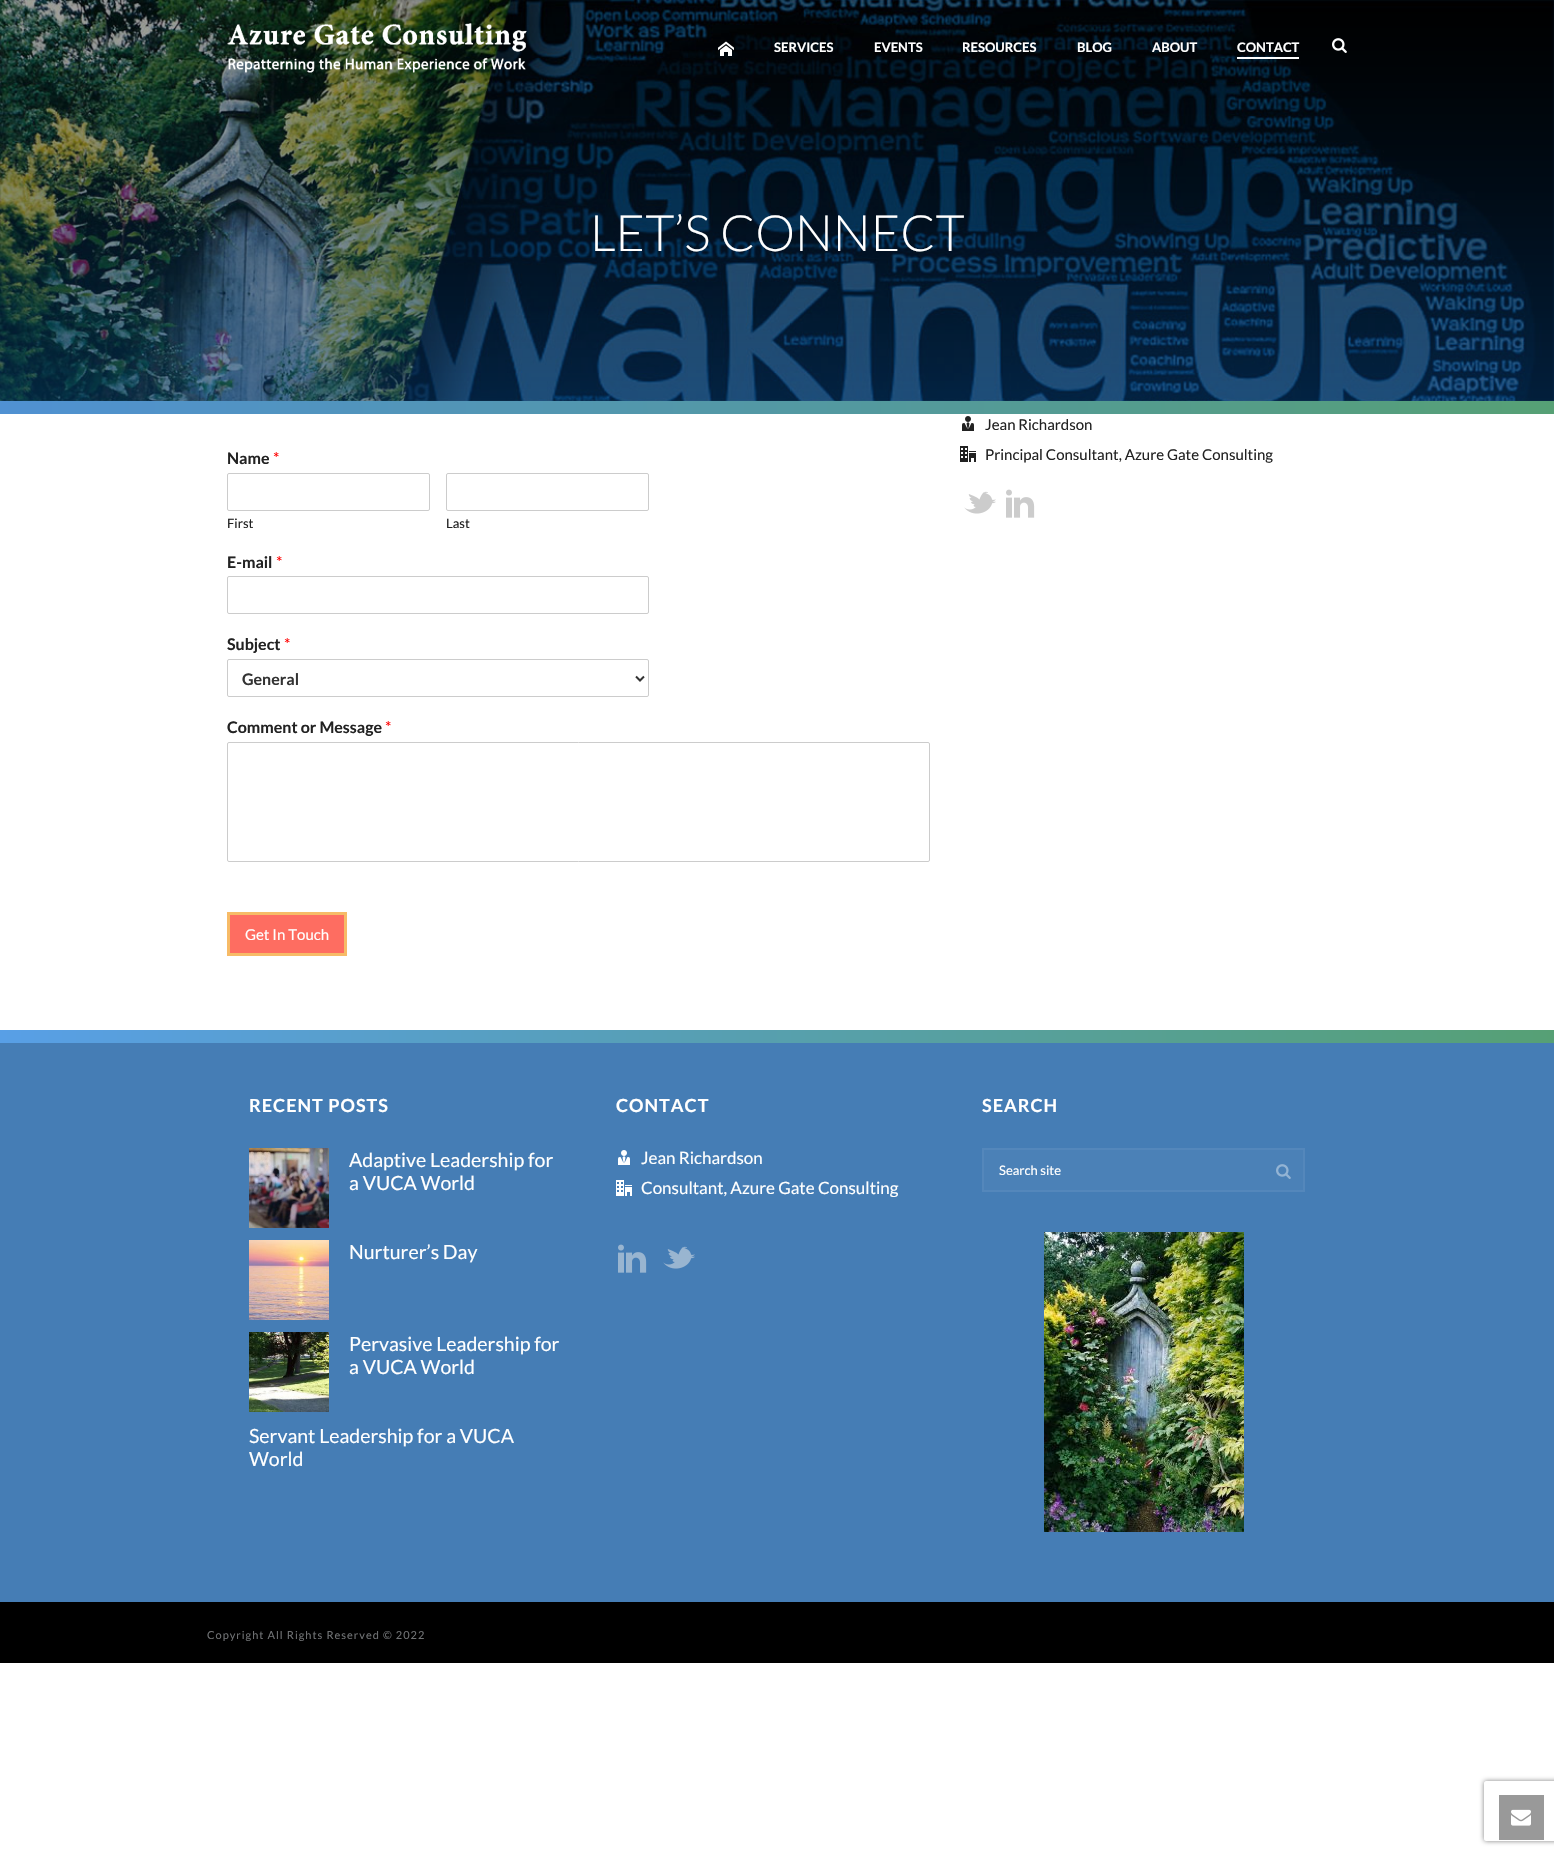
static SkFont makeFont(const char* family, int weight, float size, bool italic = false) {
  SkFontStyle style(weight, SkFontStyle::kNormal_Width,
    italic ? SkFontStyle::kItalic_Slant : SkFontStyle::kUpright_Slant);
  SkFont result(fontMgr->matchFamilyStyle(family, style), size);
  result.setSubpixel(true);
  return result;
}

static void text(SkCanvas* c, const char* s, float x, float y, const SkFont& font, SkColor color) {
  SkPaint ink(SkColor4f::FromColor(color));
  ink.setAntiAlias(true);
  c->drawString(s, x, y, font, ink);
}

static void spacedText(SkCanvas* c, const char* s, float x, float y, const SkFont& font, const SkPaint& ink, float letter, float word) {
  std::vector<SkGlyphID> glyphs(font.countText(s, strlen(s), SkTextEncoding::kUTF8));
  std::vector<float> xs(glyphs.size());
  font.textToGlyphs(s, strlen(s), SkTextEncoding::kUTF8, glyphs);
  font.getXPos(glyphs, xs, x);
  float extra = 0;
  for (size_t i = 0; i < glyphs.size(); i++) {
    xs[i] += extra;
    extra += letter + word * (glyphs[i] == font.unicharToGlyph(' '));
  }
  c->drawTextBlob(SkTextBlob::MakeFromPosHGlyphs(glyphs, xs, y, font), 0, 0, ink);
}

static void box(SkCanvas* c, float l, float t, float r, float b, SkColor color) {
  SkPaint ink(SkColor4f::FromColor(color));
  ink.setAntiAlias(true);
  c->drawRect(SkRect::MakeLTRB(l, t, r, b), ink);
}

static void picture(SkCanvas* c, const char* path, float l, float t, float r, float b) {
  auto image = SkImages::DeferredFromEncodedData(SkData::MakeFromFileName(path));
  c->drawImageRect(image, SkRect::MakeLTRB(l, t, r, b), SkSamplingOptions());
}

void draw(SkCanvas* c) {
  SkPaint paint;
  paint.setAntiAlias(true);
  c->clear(0xffffffff);
  picture(c, "img_04.png", 0, 0, 1554, 401);
  {
    const SkColor colors[] = {0x5e000000, 0x99033363};
    const float stops[] = {0, 1};
    const SkPoint ends[] = {{777, 0}, {777, 401}};
    paint.setShader(SkGradientShader::MakeLinear(ends, colors, stops, 2, SkTileMode::kClamp));
    paint.setAlpha(255);
  }
  c->drawRect(SkRect::MakeLTRB(0, 0, 1554, 401), paint);
  picture(c, "img_01.png", 227, 23, 527, 73);
  picture(c, "img_02.png", 718, 41, 734, 56);
  SkFont face1 = makeFont("Lato", 700, 13);
  text(c, "SERVICES", 774, 52, face1, 0xffffffff);
  text(c, "EVENTS", 874, 52, face1, 0xffffffff);
  text(c, "RESOURCES", 962, 52, face1, 0xffffffff);
  text(c, "BLOG", 1077, 52, face1, 0xffffffff);
  text(c, "ABOUT", 1152, 52, face1, 0xffffffff);
  text(c, "CONTACT", 1237, 52, face1, 0xffffffff);
  box(c, 1237, 57, 1299, 59, 0xffffffff);
  picture(c, "img_03.png", 1332, 38, 1347, 53);
  SkFont face2 = makeFont("Lato", 300, 50);
  text(c, "LET’S CONNECT", 590, 251, face2, 0xffffffff);
  {
    const SkColor colors[] = {0xff5091d2, 0xff56a075};
    const float stops[] = {0, 1};
    const SkPoint ends[] = {{0, 408}, {1554, 407}};
    paint.setShader(SkGradientShader::MakeLinear(ends, colors, stops, 2, SkTileMode::kClamp));
    paint.setAlpha(255);
  }
  c->drawRect(SkRect::MakeLTRB(0, 401, 1554, 414), paint);
  picture(c, "img_05.png", 962, 416, 974, 431);
  SkFont face3 = makeFont("Lato", 400, 15);
  text(c, "Jean Richardson", 985, 430, face3, 0xff222222);
  picture(c, "img_06.png", 960, 446, 976, 462);
  text(c, "Principal Consultant, Azure Gate Consulting", 985, 460, face3, 0xff222222);
  picture(c, "img_07.png", 964, 491, 996, 514);
  picture(c, "img_08.png", 1006, 489, 1035, 518);
  SkFont face4 = makeFont("Lato", 700, 16);
  text(c, "Name", 227, 464, face4, 0xff222222);
  SkFont face5 = makeFont("Lato", 400, 16);
  text(c, "*", 273, 464, face5, 0xffff0000);
  paint.setStyle(SkPaint::kStroke_Style);
  paint.setStrokeWidth(1);
  paint.setShader(nullptr);
  paint.setColor(0xffcccccc);
  c->drawRoundRect(SkRect::MakeLTRB(227.5f, 473.5f, 429.5f, 510.5f), 1.5f, 1.5f, paint);
  SkFont face6 = makeFont("Lato", 400, 13);
  text(c, "First", 227, 528, face6, 0xff222222);
  c->drawRoundRect(SkRect::MakeLTRB(446.5f, 473.5f, 648.5f, 510.5f), 1.5f, 1.5f, paint);
  text(c, "Last", 446, 528, face6, 0xff222222);
  text(c, "E-mail", 227, 568, face4, 0xff222222);
  text(c, "*", 276, 568, face5, 0xffff0000);
  c->drawRoundRect(SkRect::MakeLTRB(227.5f, 576.5f, 648.5f, 613.5f), 1.5f, 1.5f, paint);
  text(c, "Subject", 227, 650, face4, 0xff222222);
  text(c, "*", 284, 650, face5, 0xffff0000);
  c->drawRoundRect(SkRect::MakeLTRB(227.5f, 659.5f, 648.5f, 696.5f), 1.5f, 1.5f, paint);
  paint.setStrokeWidth(2);
  paint.setColor(0xff333333);
  c->drawPath(SkPathBuilder().moveTo(636, 676.5f).lineTo(640, 680.5f).lineTo(644, 676.5f).detach(), paint);
  text(c, "General", 242, 685, face4, 0xff333333);
  text(c, "Comment or Message", 227, 733, face4, 0xff222222);
  text(c, "*", 385, 733, face5, 0xffff0000);
  paint.setStrokeWidth(1);
  paint.setColor(0xffcccccc);
  c->drawRoundRect(SkRect::MakeLTRB(227.5f, 742.5f, 929.5f, 861.5f), 1.5f, 1.5f, paint);
  paint.setStyle(SkPaint::kFill_Style);
  paint.setColor(0xfffe6d61);
  c->drawRect(SkRect::MakeLTRB(228.5f, 913.5f, 345.5f, 954.5f), paint);
  paint.setStyle(SkPaint::kStroke_Style);
  paint.setStrokeWidth(3);
  paint.setColor(0xfff7bb67);
  c->drawRect(SkRect::MakeLTRB(228.5f, 913.5f, 345.5f, 954.5f), paint);
  text(c, "Get In Touch", 245, 940, face3, 0xffffffff);
  c->save();
  c->clipPath(SkPathBuilder(SkPathFillType::kEvenOdd).moveTo(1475, 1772).lineTo(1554, 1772).lineTo(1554, 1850).lineTo(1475, 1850).close().moveTo(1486, 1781).lineTo(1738, 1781).cubicTo(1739, 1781, 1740, 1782, 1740, 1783).lineTo(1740, 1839).cubicTo(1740, 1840, 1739, 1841, 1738, 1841).lineTo(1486, 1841).cubicTo(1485, 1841, 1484, 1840, 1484, 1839).lineTo(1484, 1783).cubicTo(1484, 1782, 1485, 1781, 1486, 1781).close().detach(), true);
  paint.setStyle(SkPaint::kFill_Style);
  paint.setColor(0xff808080);
  paint.setMaskFilter(SkMaskFilter::MakeBlur(kNormal_SkBlurStyle, 2.5f));
  c->drawRoundRect(SkRect::MakeLTRB(1484, 1781, 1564, 1841), 2, 2, paint);
  paint.setMaskFilter(nullptr);
  c->restore();
  {
    const SkColor colors[] = {0xff589fe6, 0xff56a075};
    const float stops[] = {0, 1};
    const SkPoint ends[] = {{0, 1037}, {1554, 1037}};
    paint.setShader(SkGradientShader::MakeLinear(ends, colors, stops, 2, SkTileMode::kClamp));
    paint.setAlpha(255);
  }
  c->drawRect(SkRect::MakeLTRB(0, 1030, 1554, 1043), paint);
  box(c, 0, 1043, 1554, 1602, 0xff457db5);
  SkFont face7 = makeFont("Lato", 700, 18);
  paint.setShader(nullptr);
  paint.setColor(0xffffffff);
  spacedText(c, "RECENT POSTS", 249, 1112, face7, paint, 1, 0);
  picture(c, "img_09.png", 249, 1148, 329, 1228);
  SkFont face8 = makeFont("Lato", 400, 19.5f);
  text(c, "Adaptive Leadership for", 349, 1167, face8, 0xffffffff);
  text(c, "a VUCA World", 349, 1190, face8, 0xffffffff);
  picture(c, "img_10.png", 249, 1240, 329, 1320);
  text(c, "Nurturer’s Day", 349, 1259, face8, 0xffffffff);
  picture(c, "img_11.png", 249, 1332, 329, 1412);
  text(c, "Pervasive Leadership for", 349, 1351, face8, 0xffffffff);
  text(c, "a VUCA World", 349, 1374, face8, 0xffffffff);
  text(c, "Servant Leadership for a VUCA", 249, 1443, face8, 0xffffffff);
  text(c, "World", 249, 1466, face8, 0xffffffff);
  spacedText(c, "CONTACT", 616, 1112, face7, paint, 1, 0);
  picture(c, "img_12.png", 618, 1150, 630, 1165);
  SkFont face9 = makeFont("Lato", 400, 17);
  text(c, "Jean Richardson", 641, 1164, face9, 0xffffffff);
  picture(c, "img_13.png", 616, 1180, 632, 1196);
  text(c, "Consultant, Azure Gate Consulting", 641, 1194, face9, 0xffffffff);
  picture(c, "img_14.png", 618, 1244, 647, 1273);
  picture(c, "img_15.png", 663, 1246, 695, 1269);
  spacedText(c, "SEARCH", 982, 1112, face7, paint, 1, 0);
  paint.setColor(0xff4b81b7);
  c->drawRect(SkRect::MakeLTRB(983, 1149, 1304, 1191), paint);
  paint.setStyle(SkPaint::kStroke_Style);
  paint.setStrokeWidth(2);
  paint.setColor(0xff5487bb);
  c->drawRect(SkRect::MakeLTRB(983, 1149, 1304, 1191), paint);
  text(c, "Search site", 999, 1175, face6, 0xffffffff);
  picture(c, "img_16.png", 1276, 1164, 1291, 1179);
  picture(c, "img_17.png", 1044, 1232, 1244, 1532);
  box(c, 0, 1602, 1554, 1663, 0xff000000);
  SkFont face10 = makeFont("Lato", 400, 11);
  paint.setStyle(SkPaint::kFill_Style);
  paint.setColor(0xff707274);
  spacedText(c, "Copyright All Rights Reserved © 2022", 207, 1639, face10, paint, 1, 0);
  box(c, 1499, 1795, 1544, 1840, 0xff999999);
  picture(c, "img_18.png", 1511, 1809, 1531, 1826);
}
